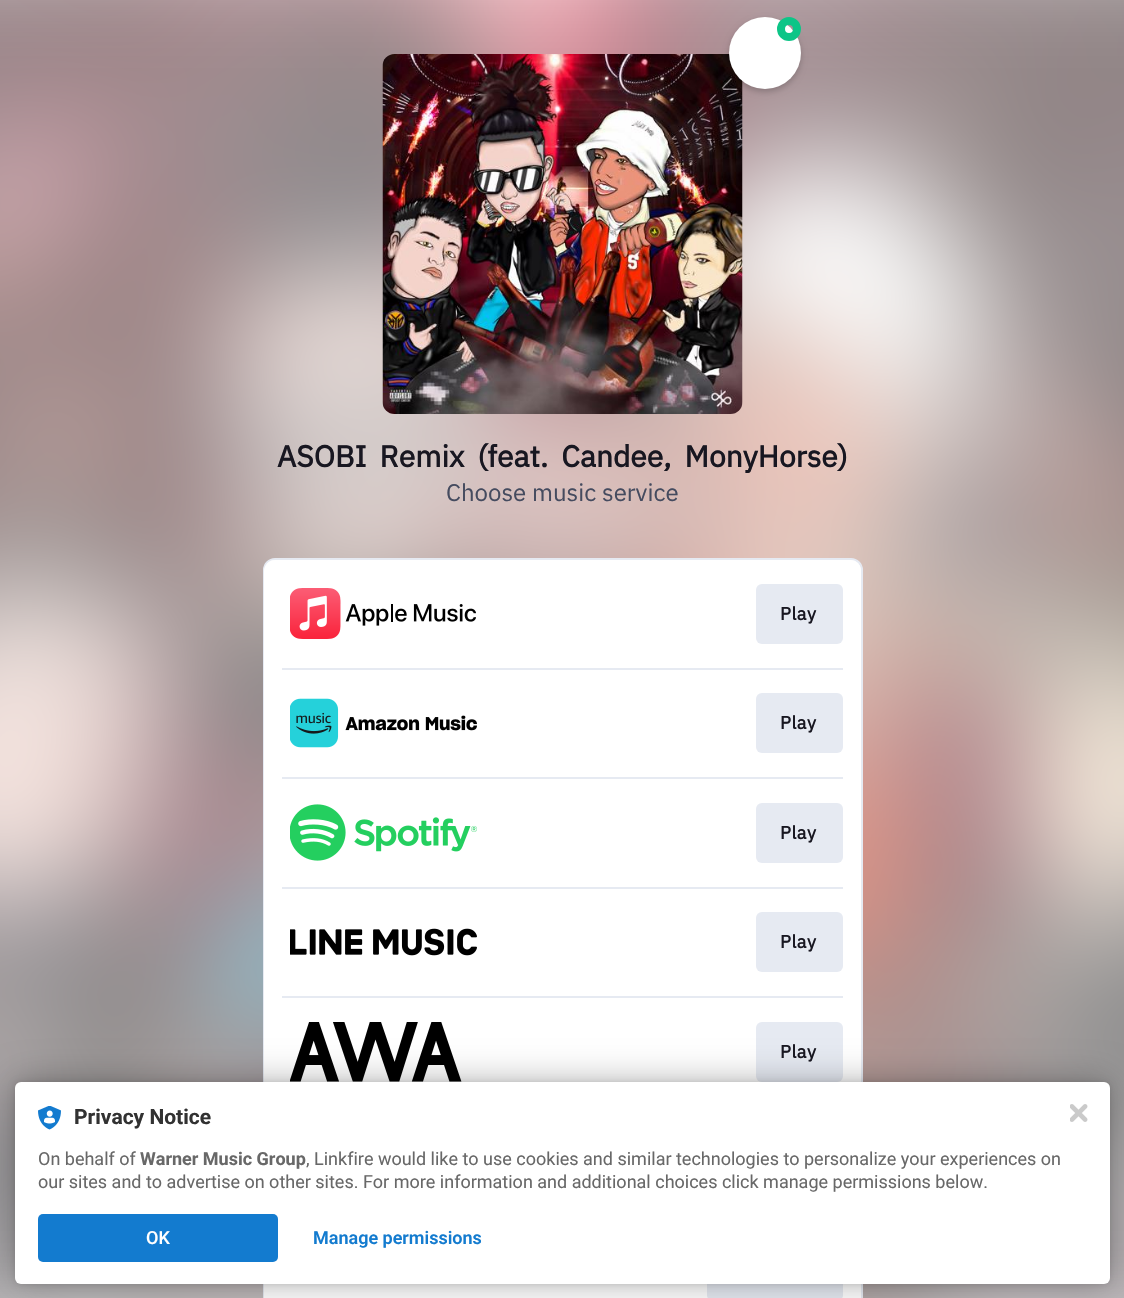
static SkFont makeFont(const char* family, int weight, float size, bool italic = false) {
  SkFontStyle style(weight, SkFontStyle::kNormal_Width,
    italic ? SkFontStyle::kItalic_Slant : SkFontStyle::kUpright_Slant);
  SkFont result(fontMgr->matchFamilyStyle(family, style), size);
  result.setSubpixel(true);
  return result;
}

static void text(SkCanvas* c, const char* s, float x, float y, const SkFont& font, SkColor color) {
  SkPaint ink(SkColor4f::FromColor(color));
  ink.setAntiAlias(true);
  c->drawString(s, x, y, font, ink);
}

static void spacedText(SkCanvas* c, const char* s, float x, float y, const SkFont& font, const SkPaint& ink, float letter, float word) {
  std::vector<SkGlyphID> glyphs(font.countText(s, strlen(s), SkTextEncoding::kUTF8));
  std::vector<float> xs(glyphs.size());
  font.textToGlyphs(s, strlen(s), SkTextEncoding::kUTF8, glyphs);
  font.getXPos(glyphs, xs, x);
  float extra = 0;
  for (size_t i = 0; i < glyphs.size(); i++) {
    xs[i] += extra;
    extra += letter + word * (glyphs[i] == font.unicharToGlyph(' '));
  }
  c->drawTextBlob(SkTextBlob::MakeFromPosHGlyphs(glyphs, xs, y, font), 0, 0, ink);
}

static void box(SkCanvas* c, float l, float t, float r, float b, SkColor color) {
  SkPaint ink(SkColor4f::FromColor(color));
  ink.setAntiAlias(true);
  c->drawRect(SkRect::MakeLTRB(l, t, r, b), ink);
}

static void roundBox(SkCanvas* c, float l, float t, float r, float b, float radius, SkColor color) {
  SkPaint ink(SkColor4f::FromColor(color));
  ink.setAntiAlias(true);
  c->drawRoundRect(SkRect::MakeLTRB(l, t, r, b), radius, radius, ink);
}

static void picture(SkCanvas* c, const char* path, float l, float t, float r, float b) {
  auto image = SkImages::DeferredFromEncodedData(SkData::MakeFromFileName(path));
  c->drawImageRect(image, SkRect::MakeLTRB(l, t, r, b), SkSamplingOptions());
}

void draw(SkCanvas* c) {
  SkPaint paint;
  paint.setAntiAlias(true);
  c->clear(0xffffffff);
  picture(c, "img_01.png", 0, 0, 1124, 1298);
  picture(c, "img_02.png", 382, 54, 743, 414);
  paint.setColor(0x33000000);
  paint.setMaskFilter(SkMaskFilter::MakeBlur(kNormal_SkBlurStyle, 3));
  c->drawRoundRect(SkRect::MakeLTRB(729, 20, 801, 92), 36, 36, paint);
  paint.setMaskFilter(nullptr);
  paint.setColor(0xffffffff);
  c->drawCircle(765, 53, 36, paint);
  paint.setStyle(SkPaint::kStroke_Style);
  paint.setStrokeWidth(8);
  paint.setColor(0xff0dc587);
  c->drawCircle(789, 29, 8, paint);
  SkFont face1 = makeFont("IBM Plex Sans", 700, 30);
  paint.setStyle(SkPaint::kFill_Style);
  paint.setColor(0xff181721);
  spacedText(c, "ASOBI Remix (feat. Candee, MonyHorse)", 277, 467, face1, paint, 0, 6);
  SkFont face2 = makeFont("IBM Plex Sans", 400, 24);
  text(c, "Choose music service", 446, 501, face2, 0xff454b5f);
  paint.setColor(0xffffffff);
  c->drawRoundRect(SkRect::MakeLTRB(264, 559, 862, 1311), 11, 11, paint);
  paint.setStyle(SkPaint::kStroke_Style);
  paint.setStrokeWidth(2);
  paint.setColor(0xffe6eaf2);
  c->drawRoundRect(SkRect::MakeLTRB(264, 559, 862, 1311), 11, 11, paint);
  roundBox(c, 264, 560, 861, 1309, 11, 0xffffffff);
  picture(c, "img_03.png", 290, 588, 476, 639);
  roundBox(c, 756, 584, 843, 644, 6, 0xffe6eaf2);
  SkFont face3 = makeFont("IBM Plex Sans", 700, 18);
  paint.setStyle(SkPaint::kFill_Style);
  paint.setColor(0xff181721);
  spacedText(c, "Play", 780, 620, face3, paint, 0.5f, 0);
  box(c, 282, 668, 843, 670, 0xffe6eaf2);
  picture(c, "img_04.png", 290, 698, 477, 748);
  roundBox(c, 756, 693, 843, 753, 6, 0xffe6eaf2);
  spacedText(c, "Play", 780, 729, face3, paint, 0.5f, 0);
  box(c, 282, 777, 843, 779, 0xffe6eaf2);
  picture(c, "img_05.png", 290, 804, 477, 861);
  roundBox(c, 756, 803, 843, 863, 6, 0xffe6eaf2);
  spacedText(c, "Play", 780, 839, face3, paint, 0.5f, 0);
  box(c, 282, 887, 843, 889, 0xffe6eaf2);
  picture(c, "img_06.png", 290, 928, 477, 956);
  roundBox(c, 756, 912, 843, 972, 6, 0xffe6eaf2);
  spacedText(c, "Play", 780, 948, face3, paint, 0.5f, 0);
  box(c, 282, 996, 843, 998, 0xffe6eaf2);
  picture(c, "img_07.png", 290, 1022, 462, 1082);
  roundBox(c, 756, 1022, 843, 1082, 6, 0xffe6eaf2);
  spacedText(c, "Play", 780, 1058, face3, paint, 0.5f, 0);
  roundBox(c, 707, 1241, 843, 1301, 6, 0xffe6eaf2);
  paint.setColor(0x1f000000);
  paint.setMaskFilter(SkMaskFilter::MakeBlur(kNormal_SkBlurStyle, 3));
  c->drawRoundRect(SkRect::MakeLTRB(15, 1082, 1110, 1284), 6, 6, paint);
  paint.setMaskFilter(nullptr);
  paint.setColor(0x4d000000);
  paint.setMaskFilter(SkMaskFilter::MakeBlur(kNormal_SkBlurStyle, 18));
  c->drawRoundRect(SkRect::MakeLTRB(15, 1082, 1110, 1284), 6, 6, paint);
  paint.setMaskFilter(nullptr);
  roundBox(c, 15, 1082, 1110, 1284, 6, 0xffffffff);
  picture(c, "img_08.png", 38, 1106, 61, 1130);
  SkFont face4 = makeFont("Roboto", 700, 21);
  text(c, "Privacy Notice", 74, 1124, face4, 0xff323232);
  SkFont face5 = makeFont("Roboto", 400, 18);
  text(c, "On behalf of", 38, 1165, face5, 0xff686868);
  SkFont face6 = makeFont("Roboto", 700, 18);
  text(c, "Warner Music Group", 140, 1165, face6, 0xff686868);
  text(c, ", Linkfire would like to use cookies and similar technologies to personalize your experiences on", 306, 1165, face5, 0xff686868);
  text(c, "our sites and to advertise on other sites. For more information and additional choices click manage permissions below.", 38, 1188, face5, 0xff686868);
  roundBox(c, 38, 1214, 278, 1262, 5, 0xff137bcf);
  SkFont face7 = makeFont("Roboto", 500, 18);
  text(c, "OK", 146, 1244, face7, 0xffffffff);
  SkFont face8 = makeFont("Roboto", 600, 18);
  text(c, "Manage permissions", 313, 1244, face8, 0xff137bcf);
  picture(c, "img_09.png", 1070, 1104, 1088, 1122);
}
